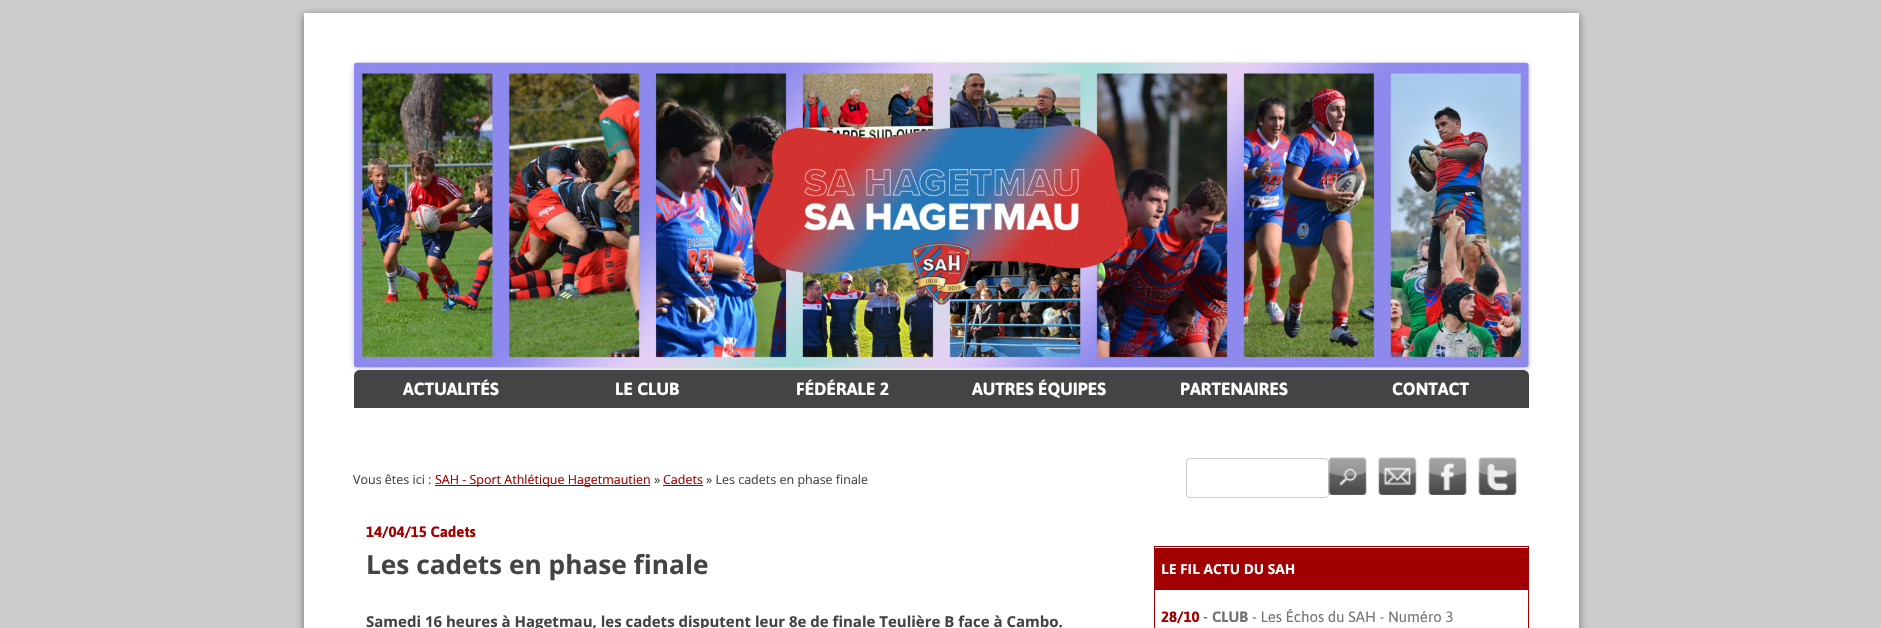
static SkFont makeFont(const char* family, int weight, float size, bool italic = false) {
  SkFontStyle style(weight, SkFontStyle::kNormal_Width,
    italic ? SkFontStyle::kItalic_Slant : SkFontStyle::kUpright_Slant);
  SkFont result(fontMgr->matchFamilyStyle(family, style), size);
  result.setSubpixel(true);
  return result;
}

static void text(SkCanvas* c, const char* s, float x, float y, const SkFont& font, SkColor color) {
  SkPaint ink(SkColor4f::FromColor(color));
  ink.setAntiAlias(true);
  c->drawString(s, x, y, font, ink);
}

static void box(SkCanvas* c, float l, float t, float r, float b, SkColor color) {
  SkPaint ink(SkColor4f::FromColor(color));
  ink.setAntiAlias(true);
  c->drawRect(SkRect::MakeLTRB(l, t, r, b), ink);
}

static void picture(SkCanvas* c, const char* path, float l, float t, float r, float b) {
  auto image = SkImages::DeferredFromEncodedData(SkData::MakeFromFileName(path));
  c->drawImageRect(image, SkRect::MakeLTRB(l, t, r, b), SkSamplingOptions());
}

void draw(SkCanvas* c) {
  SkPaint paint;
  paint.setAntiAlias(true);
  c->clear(0xffcccccc);
  paint.setColor(0xe6646464);
  paint.setMaskFilter(SkMaskFilter::MakeBlur(kNormal_SkBlurStyle, 4));
  c->drawRect(SkRect::MakeLTRB(304, 15, 1579, 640), paint);
  paint.setMaskFilter(nullptr);
  box(c, 304, 13, 1579, 628, 0xffffffff);
  paint.setColor(0x33000000);
  paint.setMaskFilter(SkMaskFilter::MakeBlur(kNormal_SkBlurStyle, 2.5f));
  c->drawRoundRect(SkRect::MakeLTRB(354, 64, 1529, 369), 4, 4, paint);
  paint.setMaskFilter(nullptr);
  picture(c, "img_01.png", 353, 62, 1529, 368);
  paint.setColor(0xff444444);
  c->drawPath(SkPathBuilder().moveTo(360, 370).lineTo(1523, 370).cubicTo(1526.5f, 370, 1529, 372.5f, 1529, 376).lineTo(1529, 408).lineTo(354, 408).lineTo(354, 376).cubicTo(354, 372.5f, 356.5f, 370, 360, 370).close().detach(), paint);
  SkFont face1 = makeFont("Asap", 700, 17.5f);
  text(c, "ACTUALITÉS", 403, 395, face1, 0xffffffff);
  text(c, "LE CLUB", 615, 395, face1, 0xffffffff);
  text(c, "FÉDÉRALE 2", 796, 395, face1, 0xffffffff);
  text(c, "AUTRES ÉQUIPES", 972, 395, face1, 0xffffffff);
  text(c, "PARTENAIRES", 1180, 395, face1, 0xffffffff);
  text(c, "CONTACT", 1392, 395, face1, 0xffffffff);
  SkFont face2 = makeFont("Open Sans", 400, 12.5f);
  text(c, "Vous êtes ici :", 353, 484, face2, 0xff444444);
  box(c, 435, 485, 650, 486, 0xffa10000);
  text(c, "SAH - Sport Athlétique Hagetmautien", 435, 484, face2, 0xffa10000);
  text(c, "»", 654, 484, face2, 0xff444444);
  text(c, "Cadets", 663, 484, face2, 0xffa10000);
  box(c, 663, 485, 703, 486, 0xffa10000);
  text(c, "» Les cadets en phase finale", 706, 484, face2, 0xff444444);
  paint.setStyle(SkPaint::kStroke_Style);
  paint.setStrokeWidth(1);
  paint.setColor(0xffcccccc);
  c->drawRoundRect(SkRect::MakeLTRB(1186.5f, 458.5f, 1328.5f, 497.5f), 3.5f, 3.5f, paint);
  picture(c, "img_02.png", 1328, 457, 1367, 495);
  picture(c, "img_03.png", 1378, 457, 1417, 495);
  picture(c, "img_04.png", 1428, 457, 1467, 495);
  picture(c, "img_05.png", 1478, 457, 1517, 495);
  SkFont face3 = makeFont("Asap", 700, 15);
  text(c, "14/04/15 Cadets", 366, 537, face3, 0xffa10000);
  SkFont face4 = makeFont("Open Sans", 700, 26.25f);
  text(c, "Les cadets en phase finale", 366, 574, face4, 0xff444444);
  SkFont face5 = makeFont("Open Sans", 700, 15);
  text(c, "Samedi 16 heures à Hagetmau, les cadets disputent leur 8e de finale Teulière B face à Cambo.", 366, 627, face5, 0xff444444);
  paint.setColor(0xffa10000);
  c->drawRect(SkRect::MakeLTRB(1154.5f, 546.5f, 1528.5f, 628.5f), paint);
  box(c, 1155, 548, 1528, 590, 0xffa10000);
  SkFont face6 = makeFont("Open Sans", 700, 13.75f);
  text(c, "LE FIL ACTU DU SAH", 1161, 574, face6, 0xffffffff);
  text(c, "28/10", 1161, 622, face3, 0xffa10000);
  SkFont face7 = makeFont("Asap", 400, 16);
  text(c, "-", 1203, 622, face7, 0xff444444);
  text(c, "CLUB", 1212, 622, face3, 0xff757575);
  SkFont face8 = makeFont("Asap", 400, 15);
  text(c, "- Les Échos du SAH - Numéro 3", 1252, 622, face8, 0xff757575);
}
